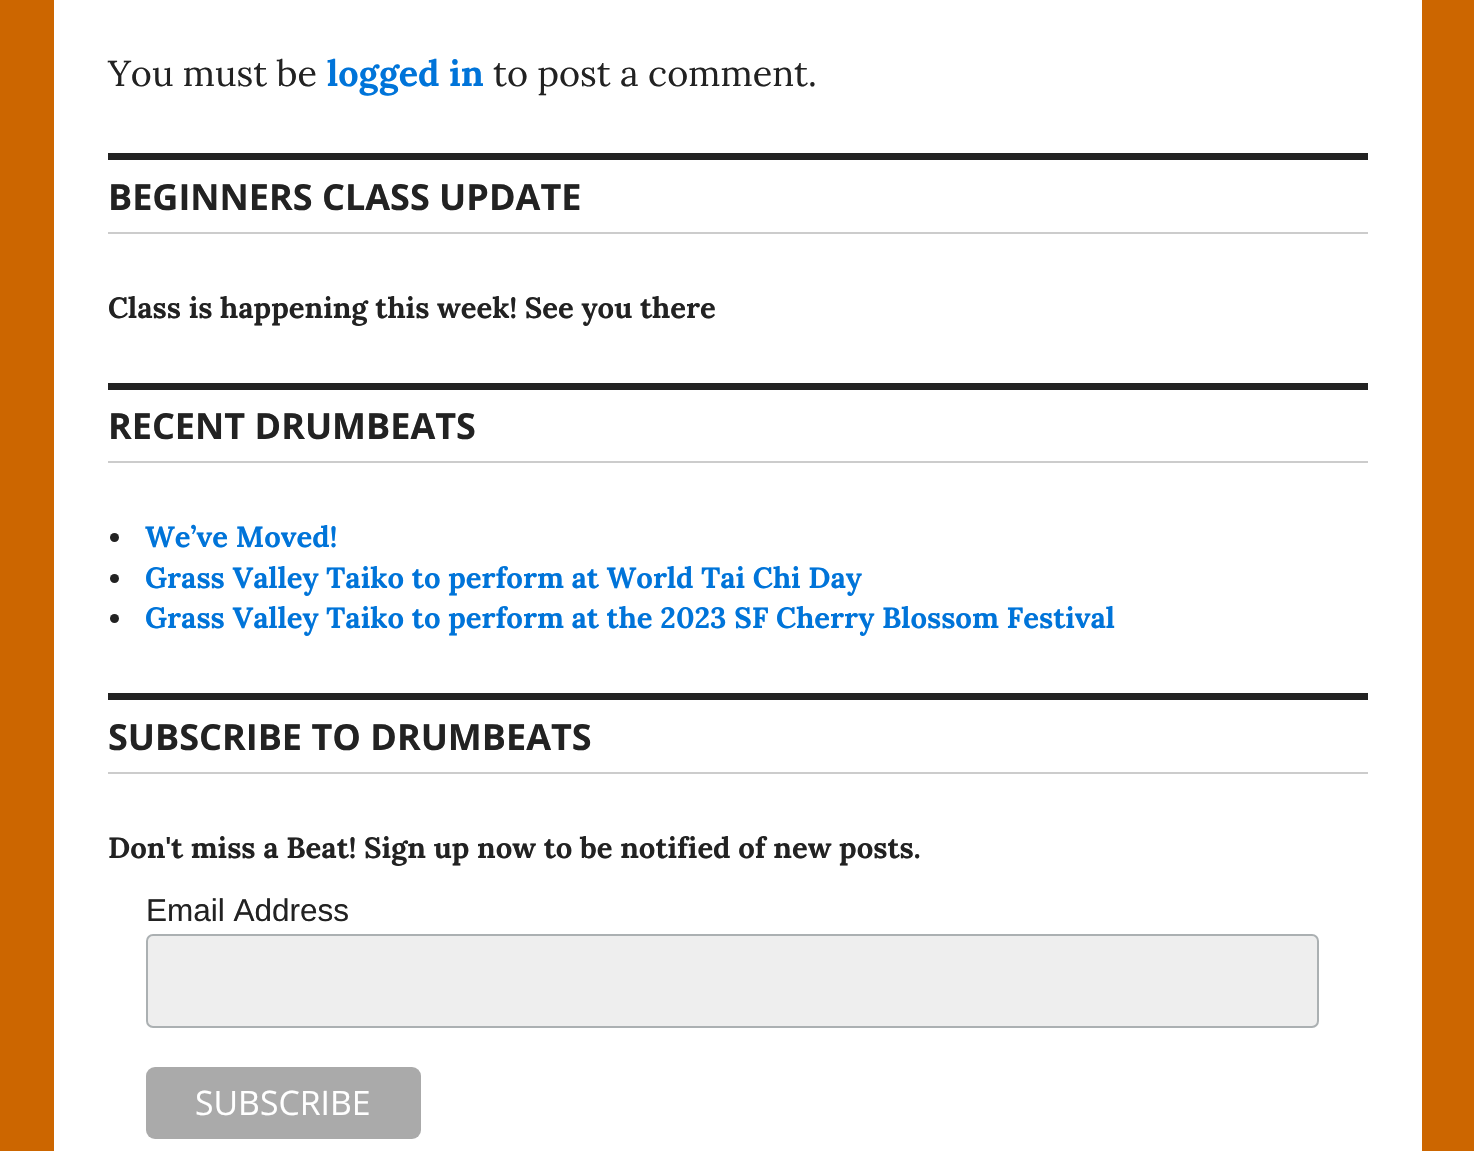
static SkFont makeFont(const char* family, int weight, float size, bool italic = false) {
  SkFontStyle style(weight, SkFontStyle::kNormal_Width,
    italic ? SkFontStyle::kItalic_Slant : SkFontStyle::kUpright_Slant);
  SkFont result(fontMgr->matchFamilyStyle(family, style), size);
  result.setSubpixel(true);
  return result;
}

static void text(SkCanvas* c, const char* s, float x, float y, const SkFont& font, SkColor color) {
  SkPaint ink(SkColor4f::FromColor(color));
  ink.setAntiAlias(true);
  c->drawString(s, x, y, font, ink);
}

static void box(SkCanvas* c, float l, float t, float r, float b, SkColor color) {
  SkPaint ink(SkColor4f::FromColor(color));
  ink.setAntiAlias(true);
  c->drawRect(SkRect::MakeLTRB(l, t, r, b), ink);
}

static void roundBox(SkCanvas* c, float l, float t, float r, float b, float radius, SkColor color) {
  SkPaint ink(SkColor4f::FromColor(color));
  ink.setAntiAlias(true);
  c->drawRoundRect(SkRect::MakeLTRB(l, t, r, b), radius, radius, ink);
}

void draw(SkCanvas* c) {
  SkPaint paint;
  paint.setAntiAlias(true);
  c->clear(0xffcc6600);
  box(c, 54, 0, 1422, 1151, 0xffffffff);
  SkFont face1 = makeFont("Lora", 400, 36);
  text(c, "You must be", 108, 86, face1, 0xff222222);
  SkFont face2 = makeFont("Lora", 700, 36);
  text(c, "logged in", 327, 86, face2, 0xff0074d9);
  text(c, "to post a comment.", 493, 86, face1, 0xff222222);
  box(c, 108, 153, 1368, 160, 0xff222222);
  box(c, 108, 232, 1368, 234, 0xffcccccc);
  SkFont face3 = makeFont("Open Sans", 700, 36);
  text(c, "BEGINNERS CLASS UPDATE", 108, 210, face3, 0xff222222);
  SkFont face4 = makeFont("Lora", 700, 29.25f);
  text(c, "Class is happening this week! See you there", 108, 318, face4, 0xff222222);
  box(c, 108, 383, 1368, 390, 0xff222222);
  box(c, 108, 461, 1368, 463, 0xffcccccc);
  text(c, "RECENT DRUMBEATS", 108, 439, face3, 0xff222222);
  paint.setColor(0xff222222);
  c->drawCircle(114.5f, 537.5f, 4.5f, paint);
  text(c, "We’ve Moved!", 145, 547, face4, 0xff0074d9);
  c->drawCircle(114.5f, 578.5f, 4.5f, paint);
  text(c, "Grass Valley Taiko to perform at World Tai Chi Day", 145, 588, face4, 0xff0074d9);
  c->drawCircle(114.5f, 618.5f, 4.5f, paint);
  text(c, "Grass Valley Taiko to perform at the 2023 SF Cherry Blossom Festival", 145, 628, face4, 0xff0074d9);
  box(c, 108, 693, 1368, 700, 0xff222222);
  box(c, 108, 772, 1368, 774, 0xffcccccc);
  text(c, "SUBSCRIBE TO DRUMBEATS", 108, 750, face3, 0xff222222);
  text(c, "Don't miss a Beat! Sign up now to be notified of new posts.", 108, 858, face4, 0xff222222);
  SkFont face5 = makeFont("Liberation Sans", 400, 31.5f);
  text(c, "Email Address", 146, 921, face5, 0xff222222);
  paint.setColor(0xffeeeeee);
  c->drawRoundRect(SkRect::MakeLTRB(147, 935, 1318, 1027), 6, 6, paint);
  paint.setStyle(SkPaint::kStroke_Style);
  paint.setStrokeWidth(2);
  paint.setColor(0xffabb0b2);
  c->drawRoundRect(SkRect::MakeLTRB(147, 935, 1318, 1027), 6, 6, paint);
  roundBox(c, 146, 1067, 421, 1139, 9, 0xffaaaaaa);
  SkFont face6 = makeFont("Open Sans", 400, 33.75f);
  text(c, "SUBSCRIBE", 195, 1115, face6, 0xffffffff);
}
